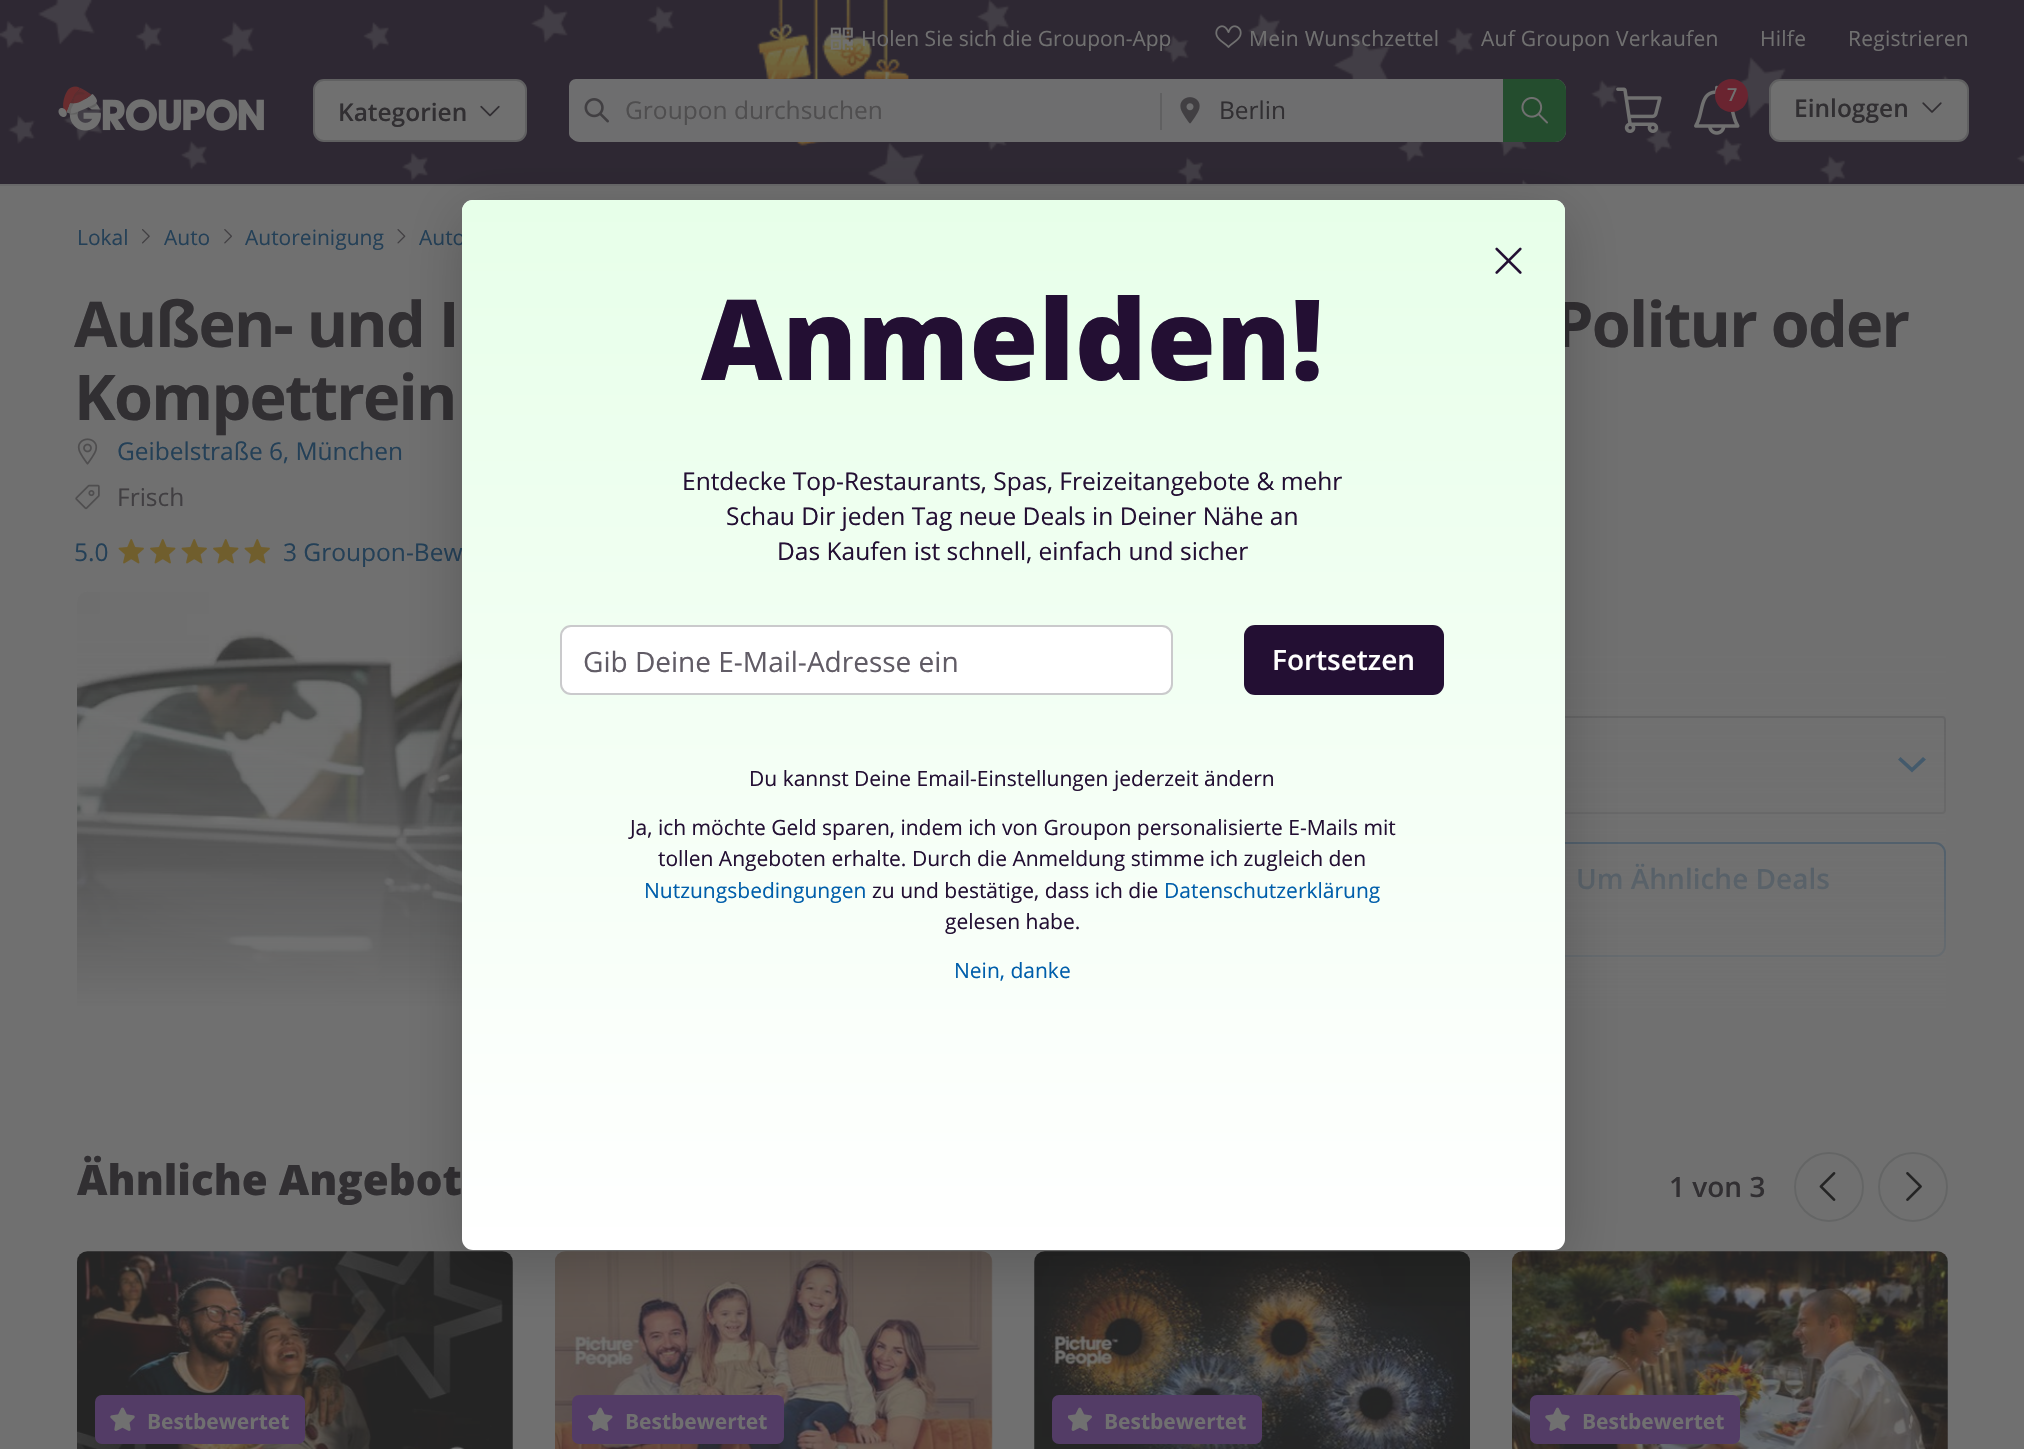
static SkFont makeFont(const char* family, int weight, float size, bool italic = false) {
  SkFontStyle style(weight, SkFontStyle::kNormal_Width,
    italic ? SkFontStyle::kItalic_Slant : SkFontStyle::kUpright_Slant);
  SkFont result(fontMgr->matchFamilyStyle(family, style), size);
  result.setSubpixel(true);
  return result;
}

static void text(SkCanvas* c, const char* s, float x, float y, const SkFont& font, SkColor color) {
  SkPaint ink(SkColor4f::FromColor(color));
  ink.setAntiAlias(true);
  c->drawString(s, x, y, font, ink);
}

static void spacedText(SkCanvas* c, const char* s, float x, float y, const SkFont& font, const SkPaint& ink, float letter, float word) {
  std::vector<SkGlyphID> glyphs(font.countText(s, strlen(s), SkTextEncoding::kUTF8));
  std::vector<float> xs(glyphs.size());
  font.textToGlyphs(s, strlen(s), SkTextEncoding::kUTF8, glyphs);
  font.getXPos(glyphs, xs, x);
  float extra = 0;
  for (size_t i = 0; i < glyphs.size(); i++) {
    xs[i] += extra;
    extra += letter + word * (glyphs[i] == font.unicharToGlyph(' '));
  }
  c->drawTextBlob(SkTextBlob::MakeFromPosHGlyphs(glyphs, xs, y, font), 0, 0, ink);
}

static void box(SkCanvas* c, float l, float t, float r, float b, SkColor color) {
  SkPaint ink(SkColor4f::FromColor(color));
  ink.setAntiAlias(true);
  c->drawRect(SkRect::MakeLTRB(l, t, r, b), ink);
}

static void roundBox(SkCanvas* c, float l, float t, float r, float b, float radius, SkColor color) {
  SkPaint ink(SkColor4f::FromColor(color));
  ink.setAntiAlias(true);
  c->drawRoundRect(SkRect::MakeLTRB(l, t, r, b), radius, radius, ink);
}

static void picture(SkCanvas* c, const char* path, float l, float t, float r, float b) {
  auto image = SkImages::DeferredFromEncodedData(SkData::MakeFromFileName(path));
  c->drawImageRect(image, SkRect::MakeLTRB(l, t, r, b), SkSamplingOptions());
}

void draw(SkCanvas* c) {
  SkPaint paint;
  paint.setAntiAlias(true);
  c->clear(0xff707070);
  picture(c, "img_01.png", 0, 0, 2024, 184);
  picture(c, "img_02.png", 830, 27, 853, 50);
  SkFont face1 = makeFont("Open Sans", 400, 21);
  text(c, "Holen Sie sich die Groupon-App", 861, 46, face1, 0xff707070);
  picture(c, "img_03.png", 1215, 25, 1242, 48);
  paint.setColor(0xff707070);
  spacedText(c, "Mein Wunschzettel", 1249, 46, face1, paint, 0.25f, 0);
  spacedText(c, "Auf Groupon Verkaufen", 1481, 46, face1, paint, 0.25f, 0);
  spacedText(c, "Hilfe", 1760, 46, face1, paint, 0.25f, 0);
  spacedText(c, "Registrieren", 1848, 46, face1, paint, 0.25f, 0);
  picture(c, "img_04.png", 58, 86, 264, 131);
  c->drawRoundRect(SkRect::MakeLTRB(314, 80, 526, 141), 10, 10, paint);
  paint.setStyle(SkPaint::kStroke_Style);
  paint.setStrokeWidth(2);
  paint.setColor(0xff606061);
  c->drawRoundRect(SkRect::MakeLTRB(314, 80, 526, 141), 10, 10, paint);
  SkFont face2 = makeFont("Open Sans", 600, 24.5f);
  text(c, "Kategorien", 338, 121, face2, 0xff312f32);
  picture(c, "img_05.png", 480, 105, 500, 117);
  roundBox(c, 569, 79, 1566, 142, 11, 0xff6e6e6f);
  roundBox(c, 569, 79, 1160, 140, 7, 0xff6e6e6f);
  picture(c, "img_06.png", 584, 98, 609, 123);
  SkFont face3 = makeFont("Open Sans", 400, 24.5f);
  text(c, "Groupon durchsuchen", 625, 119, face3, 0xff4f4e4f);
  box(c, 1160, 93, 1162, 130, 0xff606061);
  picture(c, "img_07.png", 1180, 97, 1200, 124);
  text(c, "Berlin", 1219, 119, face3, 0xff312f32);
  paint.setStyle(SkPaint::kFill_Style);
  paint.setColor(0xff244d2e);
  c->drawPath(SkPathBuilder().moveTo(1504, 80).lineTo(1555, 80).cubicTo(1560.5f, 80, 1565, 84.5f, 1565, 90).lineTo(1565, 131).cubicTo(1565, 136.5f, 1560.5f, 141, 1555, 141).lineTo(1504, 141).close().detach(), paint);
  paint.setStyle(SkPaint::kStroke_Style);
  c->drawPath(SkPathBuilder().moveTo(1504, 80).lineTo(1555, 80).cubicTo(1560.5f, 80, 1565, 84.5f, 1565, 90).lineTo(1565, 131).cubicTo(1565, 136.5f, 1560.5f, 141, 1555, 141).lineTo(1504, 141).close().detach(), paint);
  picture(c, "img_08.png", 1521, 97, 1548, 124);
  picture(c, "img_09.png", 1616, 87, 1662, 133);
  picture(c, "img_10.png", 1694, 85, 1740, 135);
  paint.setStyle(SkPaint::kFill_Style);
  paint.setColor(0xff6a2430);
  c->drawCircle(1731.5f, 95.5f, 16.5f, paint);
  SkFont face4 = makeFont("Open Sans", 600, 18);
  text(c, "7", 1727, 101, face4, 0xff707070);
  paint.setColor(0xff707070);
  c->drawRoundRect(SkRect::MakeLTRB(1770, 80, 1968, 141), 10, 10, paint);
  paint.setStyle(SkPaint::kStroke_Style);
  paint.setColor(0xff606061);
  c->drawRoundRect(SkRect::MakeLTRB(1770, 80, 1968, 141), 10, 10, paint);
  text(c, "Einloggen", 1794, 117, face2, 0xff312f32);
  picture(c, "img_11.png", 1922, 102, 1942, 113);
  box(c, 0, 184, 2024, 186, 0xff686869);
  text(c, "Lokal", 77, 245, face1, 0xff244057);
  picture(c, "img_12.png", 142, 229, 150, 244);
  text(c, "Auto", 164, 245, face1, 0xff244057);
  picture(c, "img_13.png", 224, 229, 232, 244);
  text(c, "Autoreinigung", 245, 245, face1, 0xff244057);
  picture(c, "img_14.png", 397, 229, 406, 244);
  text(c, "Auto", 419, 245, face1, 0xff244057);
  SkFont face5 = makeFont("Open Sans", 700, 63);
  paint.setStyle(SkPaint::kFill_Style);
  paint.setColor(0xff312f32);
  spacedText(c, "Außen- und I", 74, 347, face5, paint, -1.75f, 0);
  spacedText(c, "Politur oder", 1554, 347, face5, paint, -1.75f, 0);
  spacedText(c, "Kompettrein", 74, 420, face5, paint, -1.75f, 0);
  picture(c, "img_15.png", 77, 438, 98, 465);
  text(c, "Geibelstraße 6, München", 117, 460, face3, 0xff244057);
  picture(c, "img_16.png", 75, 484, 100, 510);
  text(c, "Frisch", 117, 506, face3, 0xff413f42);
  text(c, "5.0", 74, 561, face3, 0xff244057);
  picture(c, "img_17.png", 118, 539, 144, 564);
  picture(c, "img_18.png", 150, 539, 176, 564);
  picture(c, "img_17.png", 181, 539, 207, 564);
  picture(c, "img_18.png", 213, 539, 239, 564);
  picture(c, "img_17.png", 244, 539, 270, 564);
  text(c, "3 Groupon-Bew", 283, 561, face3, 0xff244057);
  picture(c, "img_19.png", 77, 591, 462, 1009);
  paint.setColor(0xff244a68);
  c->drawPath(SkPathBuilder(SkPathFillType::kEvenOdd).moveTo(1926, 759.5f).lineTo(1912, 772.5f).lineTo(1898, 759.5f).lineTo(1900.5f, 757).lineTo(1912, 767.5f).lineTo(1923, 757).close().detach(), paint);
  paint.setStyle(SkPaint::kStroke_Style);
  paint.setColor(0xff606061);
  c->drawRoundRect(SkRect::MakeLTRB(1356, 717, 1945, 813), 3, 3, paint);
  paint.setColor(0xff244765);
  c->drawRoundRect(SkRect::MakeLTRB(1356, 843, 1945, 956), 10, 10, paint);
  SkFont face6 = makeFont("Open Sans", 600, 28);
  text(c, "Um Ähnliche Deals", 1576, 889, face6, 0xff244057);
  paint.setStyle(SkPaint::kFill_Style);
  {
    const SkColor colors[] = {0x00707070, 0xff707070};
    const float stops[] = {0, 0.8f};
    const SkPoint ends[] = {{1012, 591}, {1012, 1117}};
    paint.setShader(SkGradientShader::MakeLinear(ends, colors, stops, 2, SkTileMode::kClamp));
    paint.setAlpha(255);
  }
  c->drawRect(SkRect::MakeLTRB(77, 637, 1946, 1009), paint);
  SkFont face7 = makeFont("Open Sans", 800, 42);
  text(c, "Ähnliche Angebot", 77, 1195, face7, 0xff312f32);
  text(c, "1 von 3", 1669, 1197, face6, 0xff312f32);
  paint.setStyle(SkPaint::kStroke_Style);
  paint.setShader(nullptr);
  paint.setColor(0xff646565);
  c->drawCircle(1829, 1187, 34, paint);
  picture(c, "img_20.png", 1819, 1172, 1836, 1201);
  c->drawCircle(1913, 1187, 34, paint);
  picture(c, "img_21.png", 1906, 1172, 1922, 1201);
  picture(c, "img_22.png", 77, 1251, 513, 1449);
  paint.setStyle(SkPaint::kFill_Style);
  paint.setColor(0xff533c66);
  c->drawRoundRect(SkRect::MakeLTRB(96, 1396, 304, 1443), 6, 6, paint);
  paint.setStyle(SkPaint::kStroke_Style);
  c->drawRoundRect(SkRect::MakeLTRB(96, 1396, 304, 1443), 6, 6, paint);
  picture(c, "img_23.png", 110, 1407, 135, 1431);
  SkFont face8 = makeFont("Open Sans", 700, 21);
  text(c, "Bestbewertet", 147, 1429, face8, 0xff707070);
  picture(c, "img_24.png", 555, 1251, 993, 1449);
  paint.setStyle(SkPaint::kFill_Style);
  c->drawRoundRect(SkRect::MakeLTRB(573, 1396, 783, 1443), 6, 6, paint);
  paint.setStyle(SkPaint::kStroke_Style);
  c->drawRoundRect(SkRect::MakeLTRB(573, 1396, 783, 1443), 6, 6, paint);
  picture(c, "img_25.png", 588, 1407, 613, 1431);
  text(c, "Bestbewertet", 625, 1429, face8, 0xff707070);
  picture(c, "img_26.png", 1034, 1251, 1470, 1449);
  paint.setStyle(SkPaint::kFill_Style);
  c->drawRoundRect(SkRect::MakeLTRB(1053, 1396, 1261, 1443), 6, 6, paint);
  paint.setStyle(SkPaint::kStroke_Style);
  c->drawRoundRect(SkRect::MakeLTRB(1053, 1396, 1261, 1443), 6, 6, paint);
  picture(c, "img_27.png", 1068, 1407, 1092, 1431);
  text(c, "Bestbewertet", 1104, 1429, face8, 0xff707070);
  picture(c, "img_28.png", 1512, 1251, 1948, 1449);
  paint.setStyle(SkPaint::kFill_Style);
  c->drawRoundRect(SkRect::MakeLTRB(1531, 1396, 1739, 1443), 6, 6, paint);
  paint.setStyle(SkPaint::kStroke_Style);
  c->drawRoundRect(SkRect::MakeLTRB(1531, 1396, 1739, 1443), 6, 6, paint);
  picture(c, "img_23.png", 1545, 1407, 1570, 1431);
  text(c, "Bestbewertet", 1582, 1429, face8, 0xff707070);
  paint.setStyle(SkPaint::kFill_Style);
  paint.setColor(0x33000000);
  paint.setMaskFilter(SkMaskFilter::MakeBlur(kNormal_SkBlurStyle, 28));
  c->drawRoundRect(SkRect::MakeLTRB(462, 214, 1565, 1264), 11, 11, paint);
  paint.setMaskFilter(nullptr);
  roundBox(c, 462, 200, 1565, 1250, 11, 0xffffffff);
  {
    const SkColor colors[] = {0xffe7ffe9, 0x00e7ffe9, 0x00ffffff, 0xffffffff};
    const float stops[] = {0, 1, 1, 1};
    const SkPoint ends[] = {{1013, 199}, {1013, 1250}};
    paint.setShader(SkGradientShader::MakeLinear(ends, colors, stops, 4, SkTileMode::kClamp));
    paint.setAlpha(255);
  }
  c->drawRoundRect(SkRect::MakeLTRB(462, 200, 1565, 1250), 11, 11, paint);
  picture(c, "img_29.png", 1495, 247, 1522, 274);
  SkFont face9 = makeFont("Open Sans", 800, 112);
  text(c, "Anmelden!", 701, 380, face9, 0xff230f33);
  text(c, "Entdecke Top-Restaurants, Spas, Freizeitangebote & mehr", 682, 490, face3, 0xff230f33);
  text(c, "Schau Dir jeden Tag neue Deals in Deiner Nähe an", 726, 525, face3, 0xff230f33);
  text(c, "Das Kaufen ist schnell, einfach und sicher", 777, 560, face3, 0xff230f33);
  paint.setShader(nullptr);
  paint.setColor(0xffffffff);
  c->drawRoundRect(SkRect::MakeLTRB(561, 626, 1172, 694), 10, 10, paint);
  paint.setStyle(SkPaint::kStroke_Style);
  paint.setColor(0xffcacacc);
  c->drawRoundRect(SkRect::MakeLTRB(561, 626, 1172, 694), 10, 10, paint);
  SkFont face10 = makeFont("Open Sans", 400, 28);
  text(c, "Gib Deine E-Mail-Adresse ein", 583, 672, face10, 0xff615c66);
  roundBox(c, 1244, 625, 1444, 695, 11, 0xff230f33);
  text(c, "Fortsetzen", 1272, 670, face6, 0xffffffff);
  text(c, "Du kannst Deine Email-Einstellungen jederzeit ändern", 749, 786, face1, 0xff230f33);
  text(c, "Ja, ich möchte Geld sparen, indem ich von Groupon personalisierte E-Mails mit", 630, 835, face1, 0xff230f33);
  text(c, "tollen Angeboten erhalte. Durch die Anmeldung stimme ich zugleich den", 658, 866, face1, 0xff230f33);
  text(c, "Nutzungsbedingungen", 644, 898, face1, 0xff005eab);
  text(c, "zu und bestätige, dass ich die", 872, 898, face1, 0xff230f33);
  text(c, "Datenschutzerklärung", 1164, 898, face1, 0xff005eab);
  text(c, "gelesen habe.", 945, 929, face1, 0xff230f33);
  text(c, "Nein, danke", 954, 978, face1, 0xff005eab);
}
